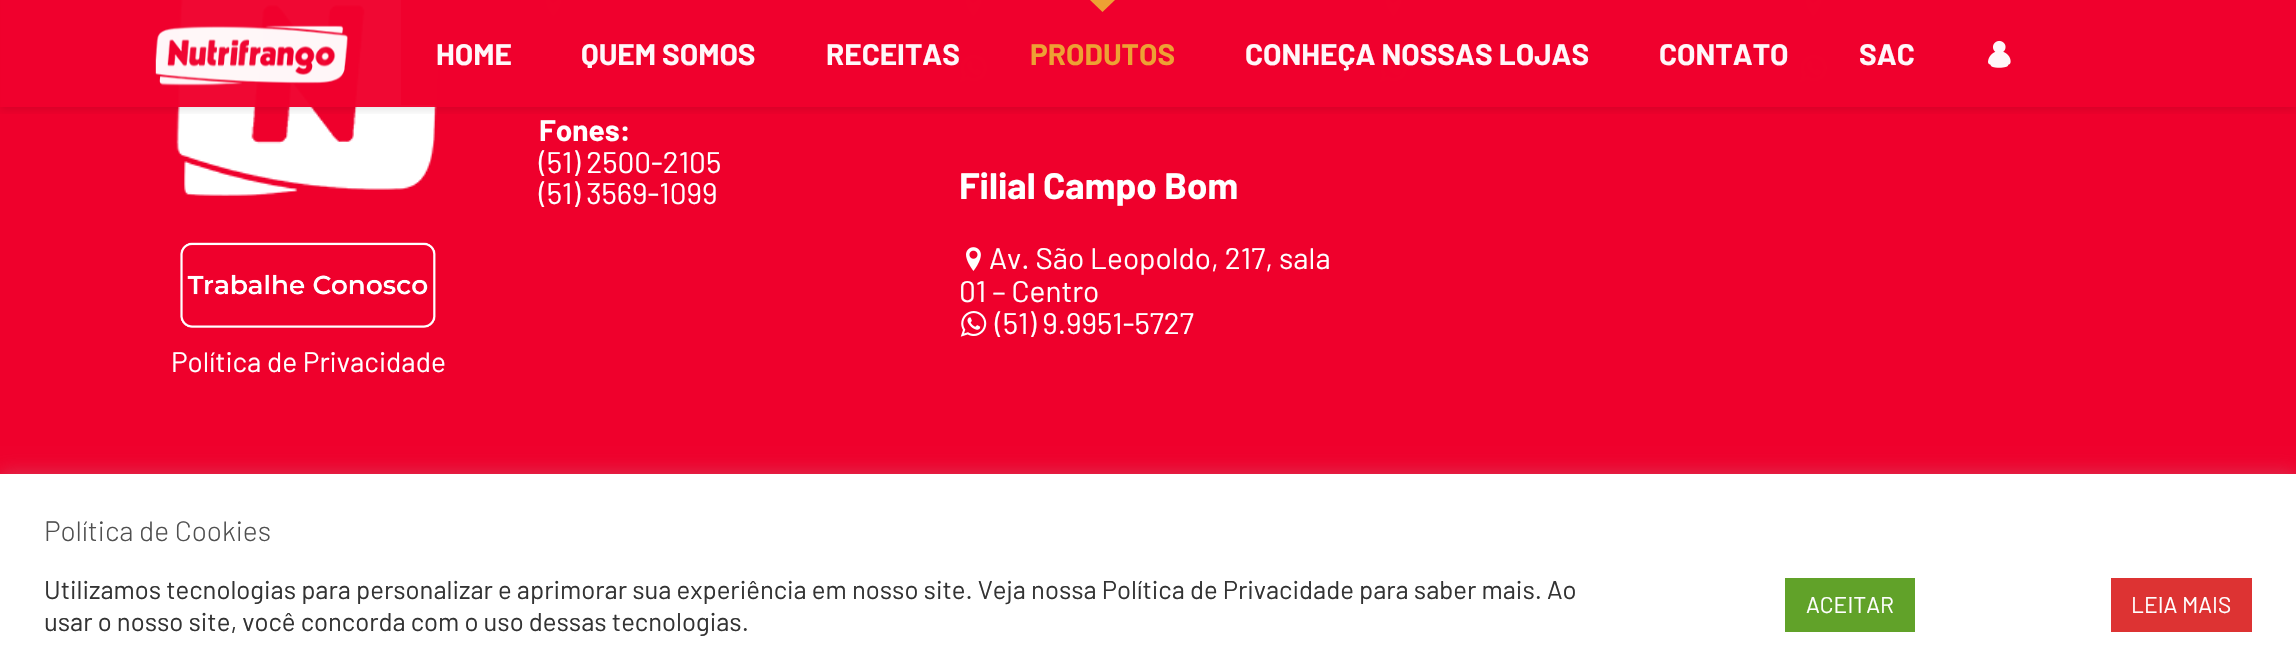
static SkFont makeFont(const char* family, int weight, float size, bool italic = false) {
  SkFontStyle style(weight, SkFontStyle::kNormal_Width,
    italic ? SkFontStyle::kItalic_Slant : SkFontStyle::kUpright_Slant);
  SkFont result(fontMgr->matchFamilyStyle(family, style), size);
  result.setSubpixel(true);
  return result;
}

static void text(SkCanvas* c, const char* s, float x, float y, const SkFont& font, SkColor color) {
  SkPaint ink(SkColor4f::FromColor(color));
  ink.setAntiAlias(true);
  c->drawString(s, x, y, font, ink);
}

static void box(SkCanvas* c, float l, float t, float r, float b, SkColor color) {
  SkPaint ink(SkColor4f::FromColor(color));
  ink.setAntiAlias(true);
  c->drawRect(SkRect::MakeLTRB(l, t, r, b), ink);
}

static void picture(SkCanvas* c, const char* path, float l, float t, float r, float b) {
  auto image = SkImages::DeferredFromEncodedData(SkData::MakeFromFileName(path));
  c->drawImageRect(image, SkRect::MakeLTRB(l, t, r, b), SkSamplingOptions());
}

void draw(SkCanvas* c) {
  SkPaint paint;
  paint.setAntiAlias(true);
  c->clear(0xffef002c);
  picture(c, "img_03.png", 1386, 0, 1401, 16);
  picture(c, "img_04.png", 1380, 55, 1407, 82);
  picture(c, "img_03.png", 1806, 0, 1821, 16);
  picture(c, "img_04.png", 1800, 55, 1827, 82);
  picture(c, "img_03.png", 546, 0, 561, 16);
  picture(c, "img_03.png", 966, 0, 981, 16);
  picture(c, "img_04.png", 960, 55, 987, 82);
  picture(c, "img_07.png", 176, 0, 440, 196);
  c->save();
  c->clipRect(SkRect::MakeLTRB(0, 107, 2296, 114));
  paint.setColor(0x1a000000);
  paint.setMaskFilter(SkMaskFilter::MakeBlur(kNormal_SkBlurStyle, 4.5f));
  c->drawRect(SkRect::MakeLTRB(0, 4, 2296, 110), paint);
  paint.setMaskFilter(nullptr);
  c->restore();
  box(c, 1, 0, 2295, 107, 0xf7ef002c);
  picture(c, "img_01.png", 155, 25, 348, 86);
  box(c, 401, 0, 1826, 105, 0xf7ef002c);
  SkFont face1 = makeFont("Barlow", 700, 29.75f);
  text(c, "HOME", 436, 65, face1, 0xfffff7f9);
  text(c, "QUEM SOMOS", 581, 65, face1, 0xfffff7f9);
  text(c, "RECEITAS", 826, 65, face1, 0xfffff7f9);
  paint.setColor(0xffeda134);
  c->drawPath(SkPathBuilder().moveTo(1090, 0).lineTo(1115, 0).lineTo(1102.5f, 12).close().detach(), paint);
  text(c, "PRODUTOS", 1030, 65, face1, 0xffeda134);
  text(c, "CONHEÇA NOSSAS LOJAS", 1245, 65, face1, 0xfffff7f9);
  text(c, "CONTATO", 1659, 65, face1, 0xfffff7f9);
  text(c, "SAC", 1859, 65, face1, 0xfffff7f9);
  picture(c, "img_02.png", 1988, 40, 2011, 68);
  text(c, "Fones:", 539, 141, face1, 0xffffffff);
  SkFont face2 = makeFont("Barlow", 400, 29.75f);
  text(c, "(51) 2500-2105", 539, 173, face2, 0xffffffff);
  text(c, "(51) 3569-1099", 539, 204, face2, 0xffffffff);
  SkFont face3 = makeFont("Barlow", 700, 36.75f);
  text(c, "Filial Campo Bom", 959, 199, face3, 0xffffffff);
  picture(c, "img_05.png", 966, 247, 981, 271);
  text(c, "Av. São Leopoldo, 217, sala", 989, 269, face2, 0xffffffff);
  text(c, "01 – Centro", 959, 302, face2, 0xffffffff);
  picture(c, "img_06.png", 960, 311, 987, 337);
  text(c, "(51) 9.9951-5727", 995, 334, face2, 0xffffffff);
  picture(c, "img_08.png", 180, 242, 436, 328);
  SkFont face4 = makeFont("Barlow", 400, 28);
  text(c, "Política de Privacidade", 171, 372, face4, 0xffffffff);
  paint.setColor(0x4dacabab);
  paint.setMaskFilter(SkMaskFilter::MakeBlur(kNormal_SkBlurStyle, 9));
  c->drawRect(SkRect::MakeLTRB(0, 473, 2296, 663), paint);
  paint.setMaskFilter(nullptr);
  box(c, 0, 474, 2296, 665, 0xffffffff);
  SkFont face5 = makeFont("Barlow", 300, 28);
  text(c, "Política de Cookies", 44, 541, face5, 0xff505050);
  SkFont face6 = makeFont("Barlow", 400, 25.67f);
  text(c, "Utilizamos tecnologias para personalizar e aprimorar sua experiência em nosso site. Veja nossa Política de Privacidade para saber mais. Ao", 44, 599, face6, 0xff333333);
  text(c, "usar o nosso site, você concorda com o uso dessas tecnologias.", 44, 631, face6, 0xff333333);
  box(c, 1785, 578, 1915, 632, 0xff61a229);
  SkFont face7 = makeFont("Barlow", 400, 22.75f);
  text(c, "ACEITAR", 1806, 613, face7, 0xffffffff);
  box(c, 2111, 578, 2252, 632, 0xffdd3333);
  text(c, "LEIA MAIS", 2131, 613, face7, 0xffffffff);
}
